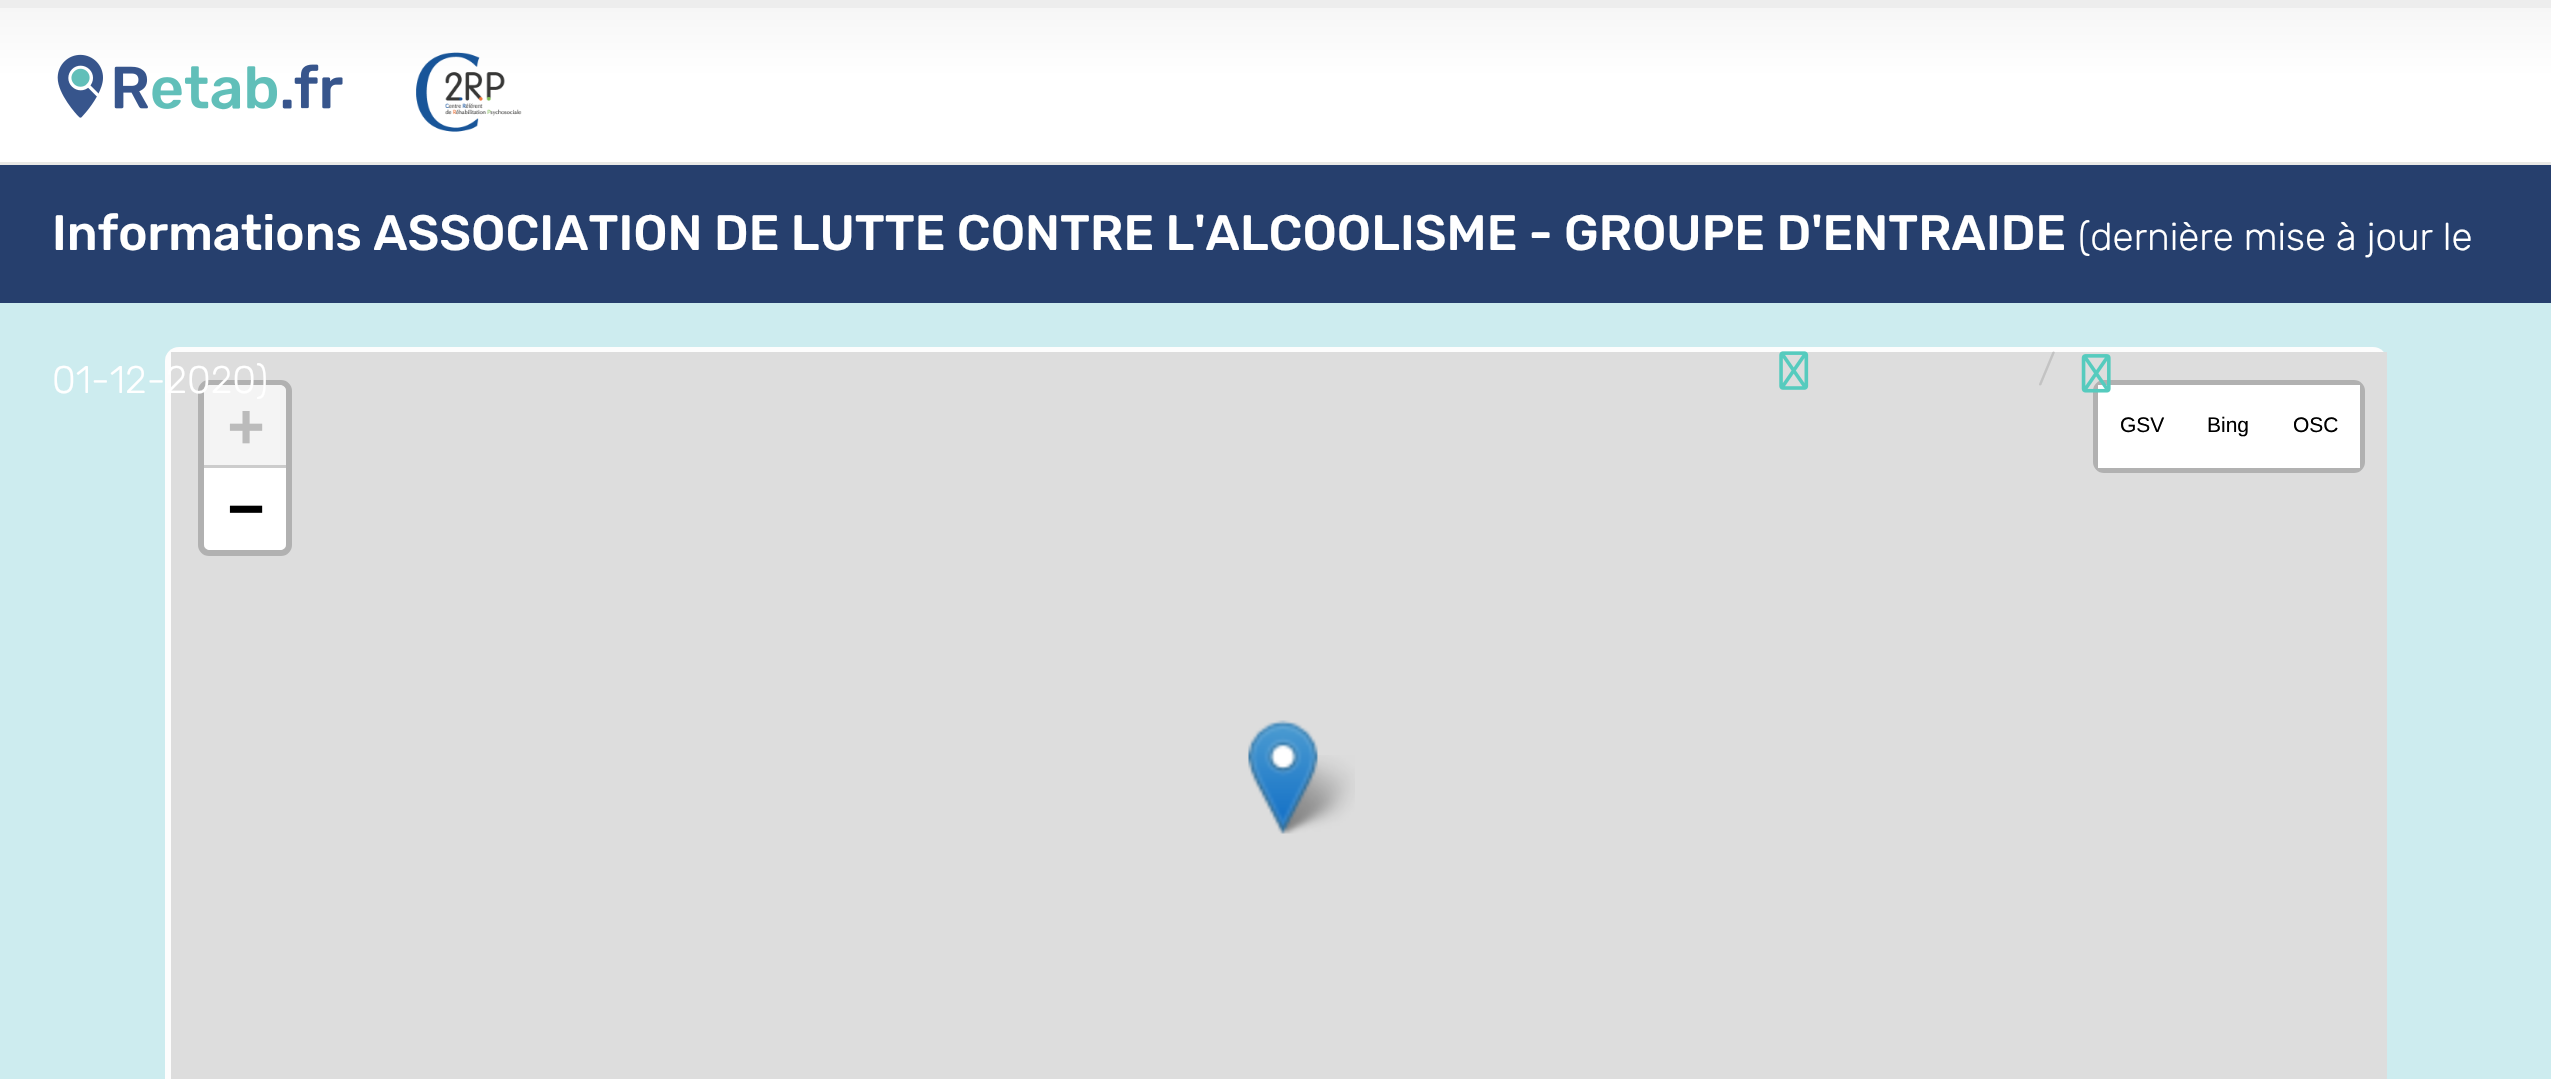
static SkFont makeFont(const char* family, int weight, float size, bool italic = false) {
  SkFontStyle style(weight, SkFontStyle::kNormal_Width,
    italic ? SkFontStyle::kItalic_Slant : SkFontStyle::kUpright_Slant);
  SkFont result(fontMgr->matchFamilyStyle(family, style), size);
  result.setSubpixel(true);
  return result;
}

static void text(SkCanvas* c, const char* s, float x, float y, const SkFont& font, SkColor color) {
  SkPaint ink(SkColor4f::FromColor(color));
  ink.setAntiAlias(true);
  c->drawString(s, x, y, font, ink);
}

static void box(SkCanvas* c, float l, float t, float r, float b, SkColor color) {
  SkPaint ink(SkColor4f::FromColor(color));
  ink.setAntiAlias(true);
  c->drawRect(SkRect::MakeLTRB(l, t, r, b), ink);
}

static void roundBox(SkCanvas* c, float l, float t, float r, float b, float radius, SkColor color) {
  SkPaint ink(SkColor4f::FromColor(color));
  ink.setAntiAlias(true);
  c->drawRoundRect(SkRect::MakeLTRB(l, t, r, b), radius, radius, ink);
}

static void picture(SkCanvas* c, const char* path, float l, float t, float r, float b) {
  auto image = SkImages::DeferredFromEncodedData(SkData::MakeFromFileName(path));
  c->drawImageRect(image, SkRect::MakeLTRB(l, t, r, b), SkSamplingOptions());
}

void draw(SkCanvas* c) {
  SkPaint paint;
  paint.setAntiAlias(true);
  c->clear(0xffcdecef);
  {
    const SkColor colors[] = {0xfff6f6f6, 0xffffffff};
    const float stops[] = {0, 0.45f};
    const SkPoint ends[] = {{1276, 8}, {1276, 162}};
    paint.setShader(SkGradientShader::MakeLinear(ends, colors, stops, 2, SkTileMode::kClamp));
    paint.setAlpha(255);
  }
  c->drawRect(SkRect::MakeLTRB(0, 8, 2551, 162), paint);
  box(c, 0, 0, 2551, 8, 0xffededed);
  box(c, 0, 162, 2551, 165, 0xffe9e9e6);
  picture(c, "img_01.png", 57, 54, 343, 118);
  picture(c, "img_02.png", 416, 52, 522, 132);
  box(c, 0, 165, 2551, 303, 0xff263f6d);
  SkFont face1 = makeFont("Rubik", 500, 49.5f);
  text(c, "Informations ASSOCIATION DE LUTTE CONTRE L'ALCOOLISME - GROUPE D'ENTRAIDE", 52, 250, face1, 0xffffffff);
  SkFont face2 = makeFont("Rubik", 300, 38.5f);
  text(c, "(dernière mise à jour le", 2078, 250, face2, 0xffffffff);
  roundBox(c, 165, 347, 2387, 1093, 14, 0xfffdfdfd);
  box(c, 171, 352, 2387, 1079, 0xffdddddd);
  paint.setStyle(SkPaint::kStroke_Style);
  paint.setStrokeWidth(6);
  paint.setShader(nullptr);
  paint.setColor(0xffb1b1b1);
  c->drawRoundRect(SkRect::MakeLTRB(201, 383, 289, 553), 8, 8, paint);
  paint.setStyle(SkPaint::kFill_Style);
  paint.setColor(0xfff4f4f4);
  c->drawPath(SkPathBuilder().moveTo(210, 385).lineTo(280, 385).cubicTo(283.5f, 385, 286, 387.5f, 286, 391).lineTo(286, 468).lineTo(204, 468).lineTo(204, 391).cubicTo(204, 387.5f, 206.5f, 385, 210, 385).close().detach(), paint);
  text(c, "01-12-2020)", 52, 393, face2, 0xffffffff);
  picture(c, "img_03.png", 1779, 351, 1809, 390);
  text(c, "/", 2038, 382, face2, 0xffc3c3c3);
  paint.setStyle(SkPaint::kStroke_Style);
  paint.setColor(0xffb1b1b1);
  c->drawRoundRect(SkRect::MakeLTRB(2096, 383, 2362, 470), 8, 8, paint);
  box(c, 2098, 385, 2360, 468, 0xffffffff);
  picture(c, "img_04.png", 2081, 354, 2111, 393);
  box(c, 204, 465, 286, 468, 0xffcccccc);
  SkFont face3 = makeFont("DejaVu Sans Mono", 700, 60);
  text(c, "+", 228, 446, face3, 0xffbbbbbb);
  paint.setStyle(SkPaint::kFill_Style);
  paint.setColor(0xffffffff);
  c->drawPath(SkPathBuilder().moveTo(204, 468).lineTo(286, 468).lineTo(286, 544).cubicTo(286, 547.5f, 283.5f, 550, 280, 550).lineTo(210, 550).cubicTo(206.5f, 550, 204, 547.5f, 204, 544).close().detach(), paint);
  text(c, "−", 228, 528, face3, 0xff000000);
  SkFont face4 = makeFont("Liberation Sans", 400, 21);
  text(c, "GSV", 2120, 432, face4, 0xff000000);
  text(c, "Bing", 2207, 432, face4, 0xff000000);
  text(c, "OSC", 2293, 432, face4, 0xff000000);
  picture(c, "img_06.png", 1273, 755, 1355, 834);
  picture(c, "img_05.png", 1248, 720, 1318, 834);
}
